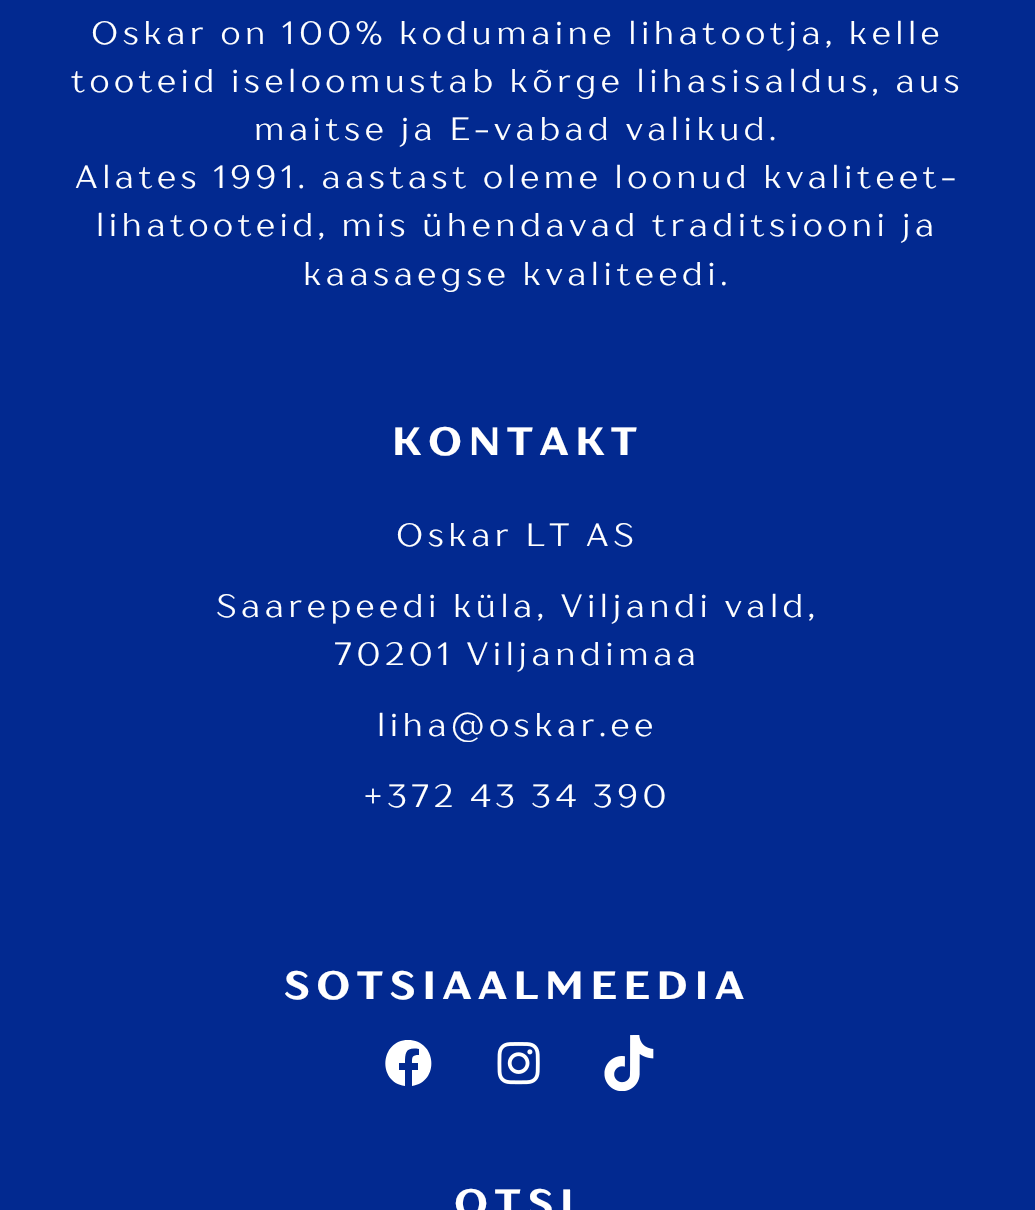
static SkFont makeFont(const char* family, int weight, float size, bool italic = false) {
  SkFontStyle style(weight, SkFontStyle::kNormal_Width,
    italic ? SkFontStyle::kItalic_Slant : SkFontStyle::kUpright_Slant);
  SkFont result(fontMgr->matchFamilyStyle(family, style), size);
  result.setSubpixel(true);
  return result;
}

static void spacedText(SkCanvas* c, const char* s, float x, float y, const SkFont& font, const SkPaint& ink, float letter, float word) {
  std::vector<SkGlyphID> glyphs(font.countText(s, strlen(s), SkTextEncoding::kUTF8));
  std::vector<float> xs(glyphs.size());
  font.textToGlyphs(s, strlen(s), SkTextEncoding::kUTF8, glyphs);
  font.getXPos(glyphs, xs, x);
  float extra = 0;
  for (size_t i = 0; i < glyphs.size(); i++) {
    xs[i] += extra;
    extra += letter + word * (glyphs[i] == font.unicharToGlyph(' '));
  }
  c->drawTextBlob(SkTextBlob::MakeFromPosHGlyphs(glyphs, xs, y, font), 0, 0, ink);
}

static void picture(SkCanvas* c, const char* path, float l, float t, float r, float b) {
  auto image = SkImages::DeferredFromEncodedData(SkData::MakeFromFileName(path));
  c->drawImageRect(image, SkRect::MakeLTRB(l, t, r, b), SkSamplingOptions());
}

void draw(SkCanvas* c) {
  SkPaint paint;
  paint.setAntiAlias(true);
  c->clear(0xff022990);
  SkFont face1 = makeFont("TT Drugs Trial", 400, 32.1f);
  paint.setColor(0xffffffff);
  spacedText(c, "Oskar on 100% kodumaine lihatootja, kelle", 91, 44, face1, paint, 4.5f, 0);
  spacedText(c, "tooteid iseloomustab kõrge lihasisaldus, aus", 71, 92, face1, paint, 4.5f, 0);
  spacedText(c, "maitse ja E-vabad valikud.", 254, 140, face1, paint, 4.5f, 0);
  spacedText(c, "Alates 1991. aastast oleme loonud kvaliteet-", 75, 188, face1, paint, 4.5f, 0);
  spacedText(c, "lihatooteid, mis ühendavad traditsiooni ja", 96, 236, face1, paint, 4.5f, 0);
  spacedText(c, "kaasaegse kvaliteedi.", 303, 285, face1, paint, 4.5f, 0);
  SkFont face2 = makeFont("TT Drugs Trial", 700, 39.3f);
  spacedText(c, "KONTAKT", 392, 455, face2, paint, 6.75f, 0);
  spacedText(c, "Oskar LT AS", 396, 546, face1, paint, 4.5f, 0);
  spacedText(c, "Saarepeedi küla, Viljandi vald,", 216, 617, face1, paint, 4.5f, 0);
  spacedText(c, "70201 Viljandimaa", 334, 665, face1, paint, 4.5f, 0);
  spacedText(c, "liha@oskar.ee", 377, 736, face1, paint, 4.5f, 0);
  spacedText(c, "+372 43 34 390", 363, 807, face1, paint, 4.5f, 0);
  spacedText(c, "SOTSIAALMEEDIA", 284, 999, face2, paint, 6.75f, 0);
  c->drawPath(SkPathBuilder().moveTo(408, 1040).cubicTo(380, 1040, 377, 1082, 405, 1086).lineTo(405, 1070).lineTo(399, 1070).lineTo(399, 1063).lineTo(405, 1063).cubicTo(405, 1052, 406, 1047, 419, 1049).lineTo(419, 1055).cubicTo(412, 1055, 412, 1057, 412, 1063).lineTo(418, 1063).lineTo(418, 1070).lineTo(412, 1070).lineTo(412, 1086).cubicTo(440, 1082, 437, 1040, 408, 1040).close().detach(), paint);
  picture(c, "img_01.png", 497, 1042, 540, 1085);
  picture(c, "img_02.png", 604, 1035, 654, 1091);
  spacedText(c, "OTSI", 454, 1217, face2, paint, 6.75f, 0);
}
